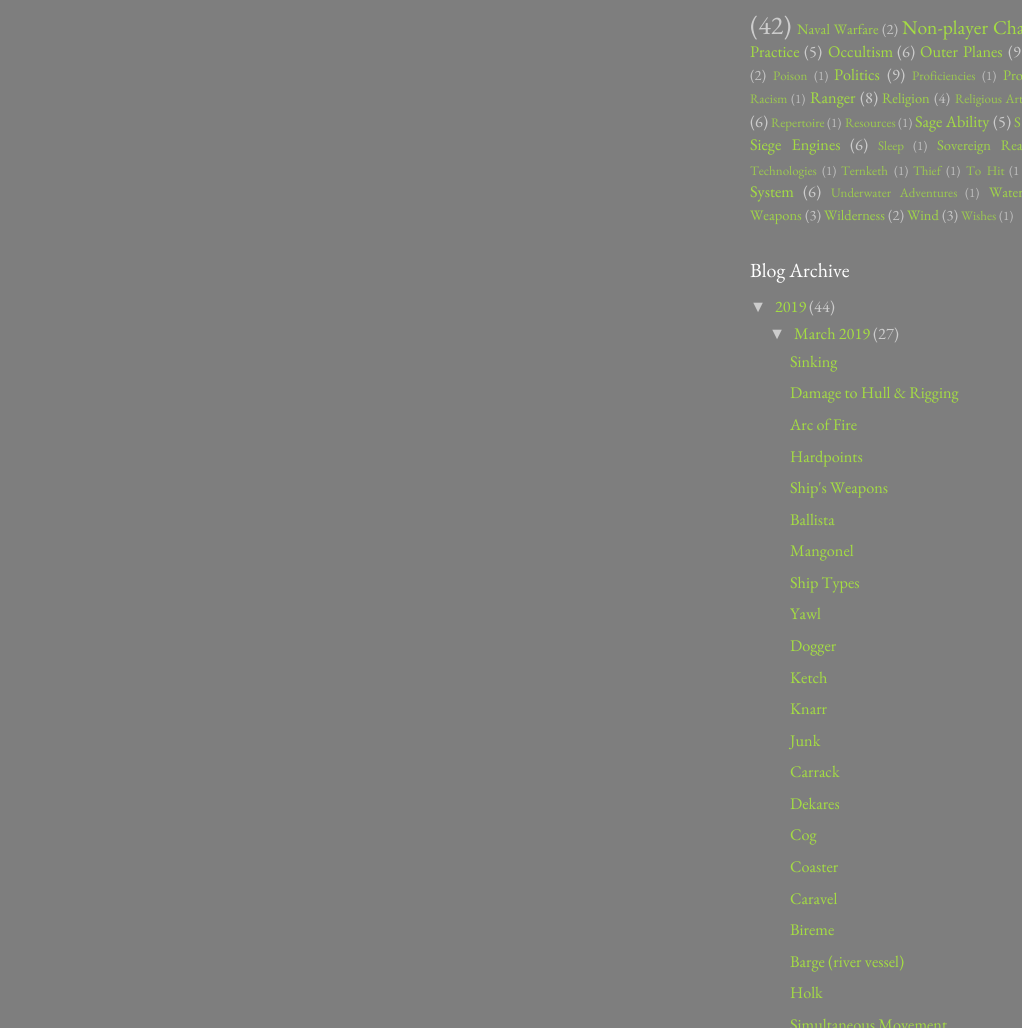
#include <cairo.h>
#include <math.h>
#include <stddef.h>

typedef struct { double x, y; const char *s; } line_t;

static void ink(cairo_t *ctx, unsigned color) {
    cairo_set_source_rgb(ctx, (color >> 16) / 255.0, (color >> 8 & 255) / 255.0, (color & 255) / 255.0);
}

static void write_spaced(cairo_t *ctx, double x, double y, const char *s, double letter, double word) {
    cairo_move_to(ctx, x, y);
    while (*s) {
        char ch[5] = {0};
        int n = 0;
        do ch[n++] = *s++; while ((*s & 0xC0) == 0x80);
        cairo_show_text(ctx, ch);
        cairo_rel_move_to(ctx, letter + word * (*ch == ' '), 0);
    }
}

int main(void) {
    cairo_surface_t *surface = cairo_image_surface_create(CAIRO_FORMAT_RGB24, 1022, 1028);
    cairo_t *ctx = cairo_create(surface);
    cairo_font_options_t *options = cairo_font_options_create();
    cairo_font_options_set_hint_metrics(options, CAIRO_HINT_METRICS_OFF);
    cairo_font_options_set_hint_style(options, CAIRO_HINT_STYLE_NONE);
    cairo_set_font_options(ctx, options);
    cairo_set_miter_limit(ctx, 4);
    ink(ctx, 0x7E7E7E);
    cairo_paint(ctx);
    cairo_select_font_face(ctx, "EB Garamond", CAIRO_FONT_SLANT_NORMAL, CAIRO_FONT_WEIGHT_NORMAL);
    cairo_set_font_size(ctx, 26);
    ink(ctx, 0xCCCCCC);
    cairo_move_to(ctx, 750, 34);
    cairo_show_text(ctx, "(42)");
    cairo_set_font_size(ctx, 14.5);
    ink(ctx, 0xA0D448);
    write_spaced(ctx, 797, 34, "Naval Warfare", 0, 1);
    ink(ctx, 0xC4C4C4);
    cairo_move_to(ctx, 882, 34);
    cairo_show_text(ctx, "(2)");
    cairo_set_font_size(ctx, 19.5);
    ink(ctx, 0xA4DD42);
    write_spaced(ctx, 902, 34, "Non-player Cha", 0, 1);
    cairo_set_font_size(ctx, 16.25);
    cairo_move_to(ctx, 750, 57);
    cairo_show_text(ctx, "Practice");
    ink(ctx, 0xCCCCCC);
    cairo_move_to(ctx, 804, 57);
    cairo_show_text(ctx, "(5)");
    ink(ctx, 0xA4DD42);
    cairo_move_to(ctx, 828, 57);
    cairo_show_text(ctx, "Occultism");
    ink(ctx, 0xCCCCCC);
    cairo_move_to(ctx, 897, 57);
    cairo_show_text(ctx, "(6)");
    ink(ctx, 0xA4DD42);
    write_spaced(ctx, 920, 57, "Outer Planes", 0, 2);
    ink(ctx, 0xCCCCCC);
    cairo_move_to(ctx, 1008, 57);
    cairo_show_text(ctx, "(9");
    cairo_set_font_size(ctx, 14.5);
    ink(ctx, 0xC4C4C4);
    cairo_move_to(ctx, 750, 80);
    cairo_show_text(ctx, "(2)");
    cairo_set_font_size(ctx, 13);
    ink(ctx, 0x9CCA4E);
    cairo_move_to(ctx, 773, 80);
    cairo_show_text(ctx, "Poison");
    ink(ctx, 0xBCBCBC);
    cairo_move_to(ctx, 814, 80);
    cairo_show_text(ctx, "(1)");
    cairo_set_font_size(ctx, 16.25);
    ink(ctx, 0xA4DD42);
    cairo_move_to(ctx, 834, 80);
    cairo_show_text(ctx, "Politics");
    ink(ctx, 0xCCCCCC);
    cairo_move_to(ctx, 887, 80);
    cairo_show_text(ctx, "(9)");
    cairo_set_font_size(ctx, 13);
    ink(ctx, 0x9CCA4E);
    cairo_move_to(ctx, 912, 80);
    cairo_show_text(ctx, "Proficiencies");
    ink(ctx, 0xBCBCBC);
    cairo_move_to(ctx, 982, 80);
    cairo_show_text(ctx, "(1)");
    cairo_set_font_size(ctx, 14.5);
    ink(ctx, 0xA0D448);
    cairo_move_to(ctx, 1003, 80);
    cairo_show_text(ctx, "Pro");
    cairo_set_font_size(ctx, 13);
    ink(ctx, 0x9CCA4E);
    cairo_move_to(ctx, 750, 103);
    cairo_show_text(ctx, "Racism");
    ink(ctx, 0xBCBCBC);
    cairo_move_to(ctx, 791, 103);
    cairo_show_text(ctx, "(1)");
    cairo_set_font_size(ctx, 16.25);
    ink(ctx, 0xA4DD42);
    cairo_move_to(ctx, 810, 103);
    cairo_show_text(ctx, "Ranger");
    ink(ctx, 0xCCCCCC);
    cairo_move_to(ctx, 860, 103);
    cairo_show_text(ctx, "(8)");
    cairo_set_font_size(ctx, 14.5);
    ink(ctx, 0xA0D448);
    cairo_move_to(ctx, 882, 103);
    cairo_show_text(ctx, "Religion");
    ink(ctx, 0xC4C4C4);
    cairo_move_to(ctx, 934, 103);
    cairo_show_text(ctx, "(4)");
    cairo_set_font_size(ctx, 13);
    ink(ctx, 0x9CCA4E);
    write_spaced(ctx, 955, 103, "Religious Art", 0, 1);
    cairo_set_font_size(ctx, 16.25);
    ink(ctx, 0xCCCCCC);
    cairo_move_to(ctx, 750, 127);
    cairo_show_text(ctx, "(6)");
    cairo_set_font_size(ctx, 13);
    ink(ctx, 0x9CCA4E);
    cairo_move_to(ctx, 771, 127);
    cairo_show_text(ctx, "Repertoire");
    ink(ctx, 0xBCBCBC);
    cairo_move_to(ctx, 827, 127);
    cairo_show_text(ctx, "(1)");
    ink(ctx, 0x9CCA4E);
    cairo_move_to(ctx, 845, 127);
    cairo_show_text(ctx, "Resources");
    ink(ctx, 0xBCBCBC);
    cairo_move_to(ctx, 898, 127);
    cairo_show_text(ctx, "(1)");
    cairo_set_font_size(ctx, 16.25);
    ink(ctx, 0xA4DD42);
    cairo_move_to(ctx, 915, 127);
    cairo_show_text(ctx, "Sage Ability");
    ink(ctx, 0xCCCCCC);
    cairo_move_to(ctx, 993, 127);
    cairo_show_text(ctx, "(5)");
    cairo_set_font_size(ctx, 14.5);
    ink(ctx, 0xA0D448);
    cairo_move_to(ctx, 1014, 127);
    cairo_show_text(ctx, "S");
    cairo_set_font_size(ctx, 16.25);
    ink(ctx, 0xA4DD42);
    write_spaced(ctx, 750, 150, "Siege Engines", 0, 7);
    ink(ctx, 0xCCCCCC);
    cairo_move_to(ctx, 850, 150);
    cairo_show_text(ctx, "(6)");
    cairo_set_font_size(ctx, 13);
    ink(ctx, 0x9CCA4E);
    cairo_move_to(ctx, 878, 150);
    cairo_show_text(ctx, "Sleep");
    ink(ctx, 0xBCBCBC);
    cairo_move_to(ctx, 913, 150);
    cairo_show_text(ctx, "(1)");
    cairo_set_font_size(ctx, 14.5);
    ink(ctx, 0xA0D448);
    write_spaced(ctx, 937, 150, "Sovereign Rea", 0, 7);
    cairo_set_font_size(ctx, 13);
    ink(ctx, 0x9CCA4E);
    cairo_move_to(ctx, 750, 175);
    cairo_show_text(ctx, "Technologies");
    ink(ctx, 0xBCBCBC);
    cairo_move_to(ctx, 822, 175);
    cairo_show_text(ctx, "(1)");
    ink(ctx, 0x9CCA4E);
    cairo_move_to(ctx, 841, 175);
    cairo_show_text(ctx, "Ternketh");
    ink(ctx, 0xBCBCBC);
    cairo_move_to(ctx, 894, 175);
    cairo_show_text(ctx, "(1)");
    ink(ctx, 0x9CCA4E);
    cairo_move_to(ctx, 913, 175);
    cairo_show_text(ctx, "Thief");
    ink(ctx, 0xBCBCBC);
    cairo_move_to(ctx, 946, 175);
    cairo_show_text(ctx, "(1)");
    ink(ctx, 0x9CCA4E);
    write_spaced(ctx, 966, 175, "To Hit", 0, 3);
    ink(ctx, 0xBCBCBC);
    cairo_move_to(ctx, 1009, 175);
    cairo_show_text(ctx, "(1");
    cairo_set_font_size(ctx, 16.25);
    ink(ctx, 0xA4DD42);
    cairo_move_to(ctx, 750, 197);
    cairo_show_text(ctx, "System");
    ink(ctx, 0xCCCCCC);
    cairo_move_to(ctx, 803, 197);
    cairo_show_text(ctx, "(6)");
    cairo_set_font_size(ctx, 13);
    ink(ctx, 0x9CCA4E);
    write_spaced(ctx, 831, 197, "Underwater Adventures", 0, 6);
    ink(ctx, 0xBCBCBC);
    cairo_move_to(ctx, 965, 197);
    cairo_show_text(ctx, "(1)");
    cairo_set_font_size(ctx, 14.5);
    ink(ctx, 0xA0D448);
    write_spaced(ctx, 989, 197, "Water", 0, 6);
    cairo_move_to(ctx, 750, 220);
    cairo_show_text(ctx, "Weapons");
    ink(ctx, 0xC4C4C4);
    cairo_move_to(ctx, 805, 220);
    cairo_show_text(ctx, "(3)");
    ink(ctx, 0xA0D448);
    cairo_move_to(ctx, 824, 220);
    cairo_show_text(ctx, "Wilderness");
    ink(ctx, 0xC4C4C4);
    cairo_move_to(ctx, 888, 220);
    cairo_show_text(ctx, "(2)");
    ink(ctx, 0xA0D448);
    cairo_move_to(ctx, 907, 220);
    cairo_show_text(ctx, "Wind");
    ink(ctx, 0xC4C4C4);
    cairo_move_to(ctx, 942, 220);
    cairo_show_text(ctx, "(3)");
    cairo_set_font_size(ctx, 13);
    ink(ctx, 0x9CCA4E);
    cairo_move_to(ctx, 961, 220);
    cairo_show_text(ctx, "Wishes");
    ink(ctx, 0xBCBCBC);
    cairo_move_to(ctx, 999, 220);
    cairo_show_text(ctx, "(1)");
    cairo_set_font_size(ctx, 20);
    ink(ctx, 0xFFFFFF);
    cairo_move_to(ctx, 750, 277);
    cairo_show_text(ctx, "Blog Archive");
    cairo_select_font_face(ctx, "Liberation Sans", CAIRO_FONT_SLANT_NORMAL, CAIRO_FONT_WEIGHT_NORMAL);
    cairo_set_font_size(ctx, 16.25);
    ink(ctx, 0xCCCCCC);
    cairo_move_to(ctx, 750, 312);
    cairo_show_text(ctx, "▼");
    cairo_select_font_face(ctx, "EB Garamond", CAIRO_FONT_SLANT_NORMAL, CAIRO_FONT_WEIGHT_NORMAL);
    ink(ctx, 0xA4DD42);
    cairo_move_to(ctx, 775, 312);
    cairo_show_text(ctx, "2019");
    ink(ctx, 0xCCCCCC);
    cairo_move_to(ctx, 809, 312);
    cairo_show_text(ctx, "(44)");
    cairo_select_font_face(ctx, "Liberation Sans", CAIRO_FONT_SLANT_NORMAL, CAIRO_FONT_WEIGHT_NORMAL);
    cairo_move_to(ctx, 769, 339);
    cairo_show_text(ctx, "▼");
    cairo_select_font_face(ctx, "EB Garamond", CAIRO_FONT_SLANT_NORMAL, CAIRO_FONT_WEIGHT_NORMAL);
    ink(ctx, 0xA4DD42);
    cairo_move_to(ctx, 794, 339);
    cairo_show_text(ctx, "March 2019");
    ink(ctx, 0xCCCCCC);
    cairo_move_to(ctx, 873, 339);
    cairo_show_text(ctx, "(27)");
    ink(ctx, 0xA4DD42);
    {
        static const line_t items[] = {
            {790, 367, "Sinking"},
            {790, 398, "Damage to Hull & Rigging"},
            {790, 430, "Arc of Fire"},
            {790, 462, "Hardpoints"},
            {790, 493, "Ship's Weapons"},
            {790, 525, "Ballista"},
            {790, 556, "Mangonel"},
            {790, 588, "Ship Types"},
            {790, 619, "Yawl"},
            {790, 651, "Dogger"},
            {790, 683, "Ketch"},
            {790, 714, "Knarr"},
            {790, 746, "Junk"},
            {790, 777, "Carrack"},
            {790, 809, "Dekares"},
            {790, 840, "Cog"},
            {790, 872, "Coaster"},
            {790, 904, "Caravel"},
            {790, 935, "Bireme"},
            {790, 967, "Barge (river vessel)"},
            {790, 998, "Holk"},
            {790, 1030, "Simultaneous Movement"},
        };
        for (size_t i = 0; i < sizeof items / sizeof *items; i++) {
            cairo_move_to(ctx, items[i].x, items[i].y);
            cairo_show_text(ctx, items[i].s);
        }
    }
    cairo_surface_write_to_png(surface, "image.png");
    cairo_font_options_destroy(options);
    cairo_destroy(ctx);
    cairo_surface_destroy(surface);
    return 0;
}
